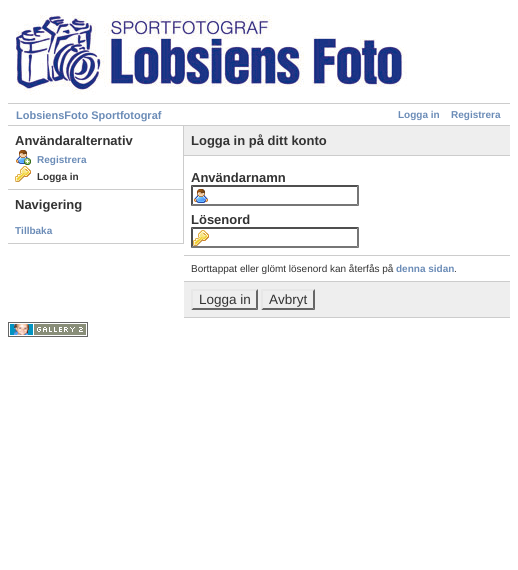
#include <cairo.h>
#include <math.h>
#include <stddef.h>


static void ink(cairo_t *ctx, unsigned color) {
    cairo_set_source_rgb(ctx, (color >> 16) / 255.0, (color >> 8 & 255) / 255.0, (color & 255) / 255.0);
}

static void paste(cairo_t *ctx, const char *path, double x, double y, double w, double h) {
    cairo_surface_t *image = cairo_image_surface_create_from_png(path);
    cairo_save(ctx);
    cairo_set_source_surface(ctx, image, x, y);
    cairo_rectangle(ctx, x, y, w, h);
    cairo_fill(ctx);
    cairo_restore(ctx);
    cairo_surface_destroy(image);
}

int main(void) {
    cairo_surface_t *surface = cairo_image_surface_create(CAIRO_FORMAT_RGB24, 518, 570);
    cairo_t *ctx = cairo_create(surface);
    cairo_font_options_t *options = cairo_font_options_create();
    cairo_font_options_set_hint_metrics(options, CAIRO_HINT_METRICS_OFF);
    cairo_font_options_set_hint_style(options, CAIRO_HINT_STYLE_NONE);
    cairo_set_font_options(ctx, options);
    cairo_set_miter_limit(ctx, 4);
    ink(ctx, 0xFFFFFF);
    cairo_paint(ctx);
    paste(ctx, "media/1.png", 16, 15, 392, 80);
    ink(ctx, 0xCCCCCC);
    cairo_rectangle(ctx, 8, 103, 502, 1);
    cairo_fill(ctx);
    cairo_rectangle(ctx, 8, 125, 502, 1);
    cairo_fill(ctx);
    cairo_select_font_face(ctx, "Liberation Sans", CAIRO_FONT_SLANT_NORMAL, CAIRO_FONT_WEIGHT_BOLD);
    cairo_set_font_size(ctx, 11);
    ink(ctx, 0x6B8CB7);
    cairo_move_to(ctx, 16, 119);
    cairo_show_text(ctx, "LobsiensFoto Sportfotograf");
    cairo_set_font_size(ctx, 10);
    cairo_move_to(ctx, 398, 118);
    cairo_show_text(ctx, "Logga in");
    cairo_move_to(ctx, 451, 118);
    cairo_show_text(ctx, "Registrera");
    ink(ctx, 0xCCCCCC);
    cairo_rectangle(ctx, 183, 126, 1, 118);
    cairo_fill(ctx);
    cairo_rectangle(ctx, 8, 189, 175, 1);
    cairo_fill(ctx);
    cairo_set_font_size(ctx, 13);
    ink(ctx, 0x333333);
    cairo_move_to(ctx, 15, 145);
    cairo_show_text(ctx, "Användaralternativ");
    paste(ctx, "media/2.png", 16, 150, 15, 15);
    cairo_set_font_size(ctx, 10);
    ink(ctx, 0x6B8CB7);
    cairo_move_to(ctx, 37, 163);
    cairo_show_text(ctx, "Registrera");
    paste(ctx, "media/3.png", 15, 166, 16, 16);
    ink(ctx, 0x333333);
    cairo_move_to(ctx, 37, 180);
    cairo_show_text(ctx, "Logga in");
    ink(ctx, 0xCCCCCC);
    cairo_rectangle(ctx, 8, 243, 175, 1);
    cairo_fill(ctx);
    cairo_set_font_size(ctx, 13);
    ink(ctx, 0x333333);
    cairo_move_to(ctx, 15, 209);
    cairo_show_text(ctx, "Navigering");
    cairo_set_font_size(ctx, 10);
    ink(ctx, 0x6B8CB7);
    cairo_move_to(ctx, 15, 234);
    cairo_show_text(ctx, "Tillbaka");
    ink(ctx, 0xEEEEEE);
    cairo_rectangle(ctx, 184, 126, 326, 29);
    cairo_fill(ctx);
    ink(ctx, 0xCCCCCC);
    cairo_rectangle(ctx, 184, 155, 326, 1);
    cairo_fill(ctx);
    cairo_set_font_size(ctx, 13);
    ink(ctx, 0x333333);
    cairo_move_to(ctx, 191, 145);
    cairo_show_text(ctx, "Logga in på ditt konto");
    ink(ctx, 0xCCCCCC);
    cairo_rectangle(ctx, 184, 255, 326, 1);
    cairo_fill(ctx);
    ink(ctx, 0x333333);
    cairo_move_to(ctx, 191, 182);
    cairo_show_text(ctx, "Användarnamn");
    paste(ctx, "media/4.png", 194, 189, 14, 14);
    ink(ctx, 0x4F4F4F);
    cairo_new_path(ctx);
    cairo_move_to(ctx, 191, 185);
    cairo_line_to(ctx, 359, 185);
    cairo_line_to(ctx, 357, 187);
    cairo_line_to(ctx, 193, 187);
    cairo_close_path(ctx);
    cairo_fill(ctx);
    ink(ctx, 0x767676);
    cairo_new_path(ctx);
    cairo_move_to(ctx, 359, 185);
    cairo_line_to(ctx, 359, 206);
    cairo_line_to(ctx, 357, 204);
    cairo_line_to(ctx, 357, 187);
    cairo_close_path(ctx);
    cairo_fill(ctx);
    cairo_new_path(ctx);
    cairo_move_to(ctx, 359, 206);
    cairo_line_to(ctx, 191, 206);
    cairo_line_to(ctx, 193, 204);
    cairo_line_to(ctx, 357, 204);
    cairo_close_path(ctx);
    cairo_fill(ctx);
    ink(ctx, 0x4F4F4F);
    cairo_new_path(ctx);
    cairo_move_to(ctx, 191, 206);
    cairo_line_to(ctx, 191, 185);
    cairo_line_to(ctx, 193, 187);
    cairo_line_to(ctx, 193, 204);
    cairo_close_path(ctx);
    cairo_fill(ctx);
    ink(ctx, 0x333333);
    cairo_move_to(ctx, 191, 224);
    cairo_show_text(ctx, "Lösenord");
    paste(ctx, "media/3.png", 193, 230, 16, 16);
    ink(ctx, 0x4F4F4F);
    cairo_new_path(ctx);
    cairo_move_to(ctx, 191, 227);
    cairo_line_to(ctx, 359, 227);
    cairo_line_to(ctx, 357, 229);
    cairo_line_to(ctx, 193, 229);
    cairo_close_path(ctx);
    cairo_fill(ctx);
    ink(ctx, 0x767676);
    cairo_new_path(ctx);
    cairo_move_to(ctx, 359, 227);
    cairo_line_to(ctx, 359, 248);
    cairo_line_to(ctx, 357, 246);
    cairo_line_to(ctx, 357, 229);
    cairo_close_path(ctx);
    cairo_fill(ctx);
    cairo_new_path(ctx);
    cairo_move_to(ctx, 359, 248);
    cairo_line_to(ctx, 191, 248);
    cairo_line_to(ctx, 193, 246);
    cairo_line_to(ctx, 357, 246);
    cairo_close_path(ctx);
    cairo_fill(ctx);
    ink(ctx, 0x4F4F4F);
    cairo_new_path(ctx);
    cairo_move_to(ctx, 191, 248);
    cairo_line_to(ctx, 191, 227);
    cairo_line_to(ctx, 193, 229);
    cairo_line_to(ctx, 193, 246);
    cairo_close_path(ctx);
    cairo_fill(ctx);
    ink(ctx, 0xCCCCCC);
    cairo_rectangle(ctx, 184, 281, 326, 1);
    cairo_fill(ctx);
    cairo_select_font_face(ctx, "Liberation Sans", CAIRO_FONT_SLANT_NORMAL, CAIRO_FONT_WEIGHT_NORMAL);
    cairo_set_font_size(ctx, 10);
    ink(ctx, 0x333333);
    cairo_move_to(ctx, 191, 272);
    cairo_show_text(ctx, "Borttappat eller glömt lösenord kan återfås på");
    cairo_select_font_face(ctx, "Liberation Sans", CAIRO_FONT_SLANT_NORMAL, CAIRO_FONT_WEIGHT_BOLD);
    ink(ctx, 0x6B8CB7);
    cairo_move_to(ctx, 396, 272);
    cairo_show_text(ctx, "denna sidan");
    cairo_select_font_face(ctx, "Liberation Sans", CAIRO_FONT_SLANT_NORMAL, CAIRO_FONT_WEIGHT_NORMAL);
    ink(ctx, 0x333333);
    cairo_move_to(ctx, 454, 272);
    cairo_show_text(ctx, ".");
    ink(ctx, 0xEEEEEE);
    cairo_rectangle(ctx, 184, 282, 326, 35);
    cairo_fill(ctx);
    ink(ctx, 0xCCCCCC);
    cairo_rectangle(ctx, 184, 317, 326, 1);
    cairo_fill(ctx);
    ink(ctx, 0xE7E7E7);
    cairo_new_path(ctx);
    cairo_move_to(ctx, 191, 289);
    cairo_line_to(ctx, 258, 289);
    cairo_line_to(ctx, 256, 291);
    cairo_line_to(ctx, 193, 291);
    cairo_close_path(ctx);
    cairo_fill(ctx);
    ink(ctx, 0x666666);
    cairo_new_path(ctx);
    cairo_move_to(ctx, 258, 289);
    cairo_line_to(ctx, 258, 310);
    cairo_line_to(ctx, 256, 308);
    cairo_line_to(ctx, 256, 291);
    cairo_close_path(ctx);
    cairo_fill(ctx);
    cairo_new_path(ctx);
    cairo_move_to(ctx, 258, 310);
    cairo_line_to(ctx, 191, 310);
    cairo_line_to(ctx, 193, 308);
    cairo_line_to(ctx, 256, 308);
    cairo_close_path(ctx);
    cairo_fill(ctx);
    ink(ctx, 0xE7E7E7);
    cairo_new_path(ctx);
    cairo_move_to(ctx, 191, 310);
    cairo_line_to(ctx, 191, 289);
    cairo_line_to(ctx, 193, 291);
    cairo_line_to(ctx, 193, 308);
    cairo_close_path(ctx);
    cairo_fill(ctx);
    cairo_set_font_size(ctx, 13.5);
    ink(ctx, 0x333333);
    cairo_move_to(ctx, 199, 304);
    cairo_show_text(ctx, "Logga in");
    ink(ctx, 0xE7E7E7);
    cairo_new_path(ctx);
    cairo_move_to(ctx, 261, 289);
    cairo_line_to(ctx, 315, 289);
    cairo_line_to(ctx, 313, 291);
    cairo_line_to(ctx, 263, 291);
    cairo_close_path(ctx);
    cairo_fill(ctx);
    ink(ctx, 0x666666);
    cairo_new_path(ctx);
    cairo_move_to(ctx, 315, 289);
    cairo_line_to(ctx, 315, 310);
    cairo_line_to(ctx, 313, 308);
    cairo_line_to(ctx, 313, 291);
    cairo_close_path(ctx);
    cairo_fill(ctx);
    cairo_new_path(ctx);
    cairo_move_to(ctx, 315, 310);
    cairo_line_to(ctx, 261, 310);
    cairo_line_to(ctx, 263, 308);
    cairo_line_to(ctx, 313, 308);
    cairo_close_path(ctx);
    cairo_fill(ctx);
    ink(ctx, 0xE7E7E7);
    cairo_new_path(ctx);
    cairo_move_to(ctx, 261, 310);
    cairo_line_to(ctx, 261, 289);
    cairo_line_to(ctx, 263, 291);
    cairo_line_to(ctx, 263, 308);
    cairo_close_path(ctx);
    cairo_fill(ctx);
    ink(ctx, 0x333333);
    cairo_move_to(ctx, 269, 304);
    cairo_show_text(ctx, "Avbryt");
    paste(ctx, "media/5.png", 8, 322, 80, 15);
    cairo_surface_write_to_png(surface, "image.png");
    cairo_font_options_destroy(options);
    cairo_destroy(ctx);
    cairo_surface_destroy(surface);
    return 0;
}
